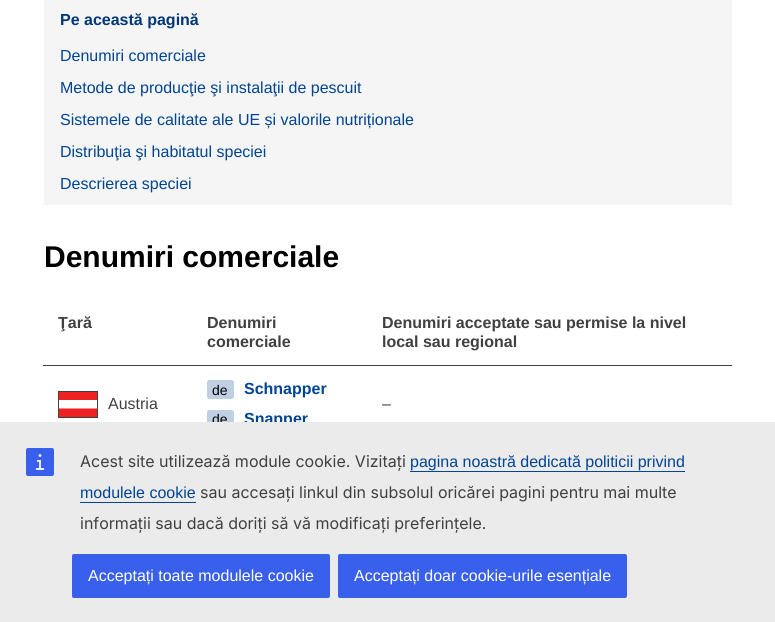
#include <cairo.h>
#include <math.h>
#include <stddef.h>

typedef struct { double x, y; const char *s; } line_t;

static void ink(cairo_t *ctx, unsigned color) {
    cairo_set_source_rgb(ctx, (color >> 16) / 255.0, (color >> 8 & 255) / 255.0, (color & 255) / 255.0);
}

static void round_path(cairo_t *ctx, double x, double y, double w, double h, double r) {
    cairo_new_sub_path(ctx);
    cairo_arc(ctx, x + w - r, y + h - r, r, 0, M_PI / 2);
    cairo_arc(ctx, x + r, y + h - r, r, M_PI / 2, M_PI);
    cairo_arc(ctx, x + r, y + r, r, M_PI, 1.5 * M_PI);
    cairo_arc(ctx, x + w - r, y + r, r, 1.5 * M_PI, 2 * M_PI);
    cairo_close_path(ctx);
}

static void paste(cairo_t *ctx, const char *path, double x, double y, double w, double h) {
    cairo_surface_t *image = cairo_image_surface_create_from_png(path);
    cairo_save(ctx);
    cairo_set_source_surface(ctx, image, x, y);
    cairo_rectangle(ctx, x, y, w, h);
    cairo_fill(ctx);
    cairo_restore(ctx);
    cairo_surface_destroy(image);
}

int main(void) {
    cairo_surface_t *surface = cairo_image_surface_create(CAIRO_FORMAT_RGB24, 775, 622);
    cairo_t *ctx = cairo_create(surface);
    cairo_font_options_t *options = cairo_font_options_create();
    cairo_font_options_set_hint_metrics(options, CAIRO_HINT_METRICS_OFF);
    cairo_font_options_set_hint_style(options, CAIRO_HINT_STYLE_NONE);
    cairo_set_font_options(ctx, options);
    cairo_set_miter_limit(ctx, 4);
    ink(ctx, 0xFFFFFF);
    cairo_paint(ctx);
    ink(ctx, 0xF5F5F5);
    cairo_rectangle(ctx, 44, 0, 688, 205);
    cairo_fill(ctx);
    cairo_select_font_face(ctx, "Liberation Sans", CAIRO_FONT_SLANT_NORMAL, CAIRO_FONT_WEIGHT_BOLD);
    cairo_set_font_size(ctx, 16);
    ink(ctx, 0x003776);
    cairo_move_to(ctx, 60, 25);
    cairo_show_text(ctx, "Pe această pagină");
    cairo_select_font_face(ctx, "Liberation Sans", CAIRO_FONT_SLANT_NORMAL, CAIRO_FONT_WEIGHT_NORMAL);
    ink(ctx, 0x004494);
    {
        static const line_t items[] = {
            {60, 61, "Denumiri comerciale"},
            {60, 93, "Metode de producţie şi instalaţii de pescuit"},
            {60, 125, "Sistemele de calitate ale UE și valorile nutriționale"},
            {60, 157, "Distribuţia şi habitatul speciei"},
            {60, 189, "Descrierea speciei"},
        };
        for (size_t i = 0; i < sizeof items / sizeof *items; i++) {
            cairo_move_to(ctx, items[i].x, items[i].y);
            cairo_show_text(ctx, items[i].s);
        }
    }
    cairo_select_font_face(ctx, "Liberation Sans", CAIRO_FONT_SLANT_NORMAL, CAIRO_FONT_WEIGHT_BOLD);
    cairo_set_font_size(ctx, 30);
    ink(ctx, 0x000000);
    cairo_move_to(ctx, 44, 267);
    cairo_show_text(ctx, "Denumiri comerciale");
    cairo_set_font_size(ctx, 16);
    ink(ctx, 0x404040);
    {
        static const line_t items[] = {
            {58, 328, "Ţară"},
            {207, 328, "Denumiri"},
            {207, 347, "comerciale"},
        };
        for (size_t i = 0; i < sizeof items / sizeof *items; i++) {
            cairo_move_to(ctx, items[i].x, items[i].y);
            cairo_show_text(ctx, items[i].s);
        }
    }
    cairo_rectangle(ctx, 43, 365, 689, 1);
    cairo_fill(ctx);
    cairo_move_to(ctx, 382, 328);
    cairo_show_text(ctx, "Denumiri acceptate sau permise la nivel");
    cairo_move_to(ctx, 382, 347);
    cairo_show_text(ctx, "local sau regional");
    paste(ctx, "media/1.png", 59, 392, 38, 25);
    cairo_rectangle(ctx, 58.5, 391.5, 39, 26);
    cairo_set_line_width(ctx, 1);
    cairo_stroke(ctx);
    cairo_select_font_face(ctx, "Liberation Sans", CAIRO_FONT_SLANT_NORMAL, CAIRO_FONT_WEIGHT_NORMAL);
    cairo_move_to(ctx, 108, 409);
    cairo_show_text(ctx, "Austria");
    ink(ctx, 0xBFD0E4);
    round_path(ctx, 207, 380, 27, 19, 2.5);
    cairo_fill(ctx);
    cairo_set_font_size(ctx, 14);
    ink(ctx, 0x000000);
    cairo_move_to(ctx, 212, 395);
    cairo_show_text(ctx, "de");
    cairo_select_font_face(ctx, "Liberation Sans", CAIRO_FONT_SLANT_NORMAL, CAIRO_FONT_WEIGHT_BOLD);
    cairo_set_font_size(ctx, 16);
    ink(ctx, 0x004494);
    cairo_move_to(ctx, 244, 394);
    cairo_show_text(ctx, "Schnapper");
    ink(ctx, 0xBFD0E4);
    round_path(ctx, 207, 410, 27, 18, 2.5);
    cairo_fill(ctx);
    cairo_select_font_face(ctx, "Liberation Sans", CAIRO_FONT_SLANT_NORMAL, CAIRO_FONT_WEIGHT_NORMAL);
    cairo_set_font_size(ctx, 14);
    ink(ctx, 0x000000);
    cairo_move_to(ctx, 212, 424);
    cairo_show_text(ctx, "de");
    cairo_select_font_face(ctx, "Liberation Sans", CAIRO_FONT_SLANT_NORMAL, CAIRO_FONT_WEIGHT_BOLD);
    cairo_set_font_size(ctx, 16);
    ink(ctx, 0x004494);
    cairo_move_to(ctx, 244, 424);
    cairo_show_text(ctx, "Snapper");
    cairo_select_font_face(ctx, "Liberation Sans", CAIRO_FONT_SLANT_NORMAL, CAIRO_FONT_WEIGHT_NORMAL);
    ink(ctx, 0x404040);
    cairo_move_to(ctx, 382, 409);
    cairo_show_text(ctx, "–");
    ink(ctx, 0xEBEBEB);
    cairo_rectangle(ctx, 0, 422, 775, 200);
    cairo_fill(ctx);
    paste(ctx, "media/2.png", 26, 448, 28, 28);
    cairo_select_font_face(ctx, "Inter", CAIRO_FONT_SLANT_NORMAL, CAIRO_FONT_WEIGHT_NORMAL);
    ink(ctx, 0x404040);
    cairo_move_to(ctx, 80, 467);
    cairo_show_text(ctx, "Acest site utilizează module cookie. Vizitați");
    cairo_select_font_face(ctx, "Liberation Sans", CAIRO_FONT_SLANT_NORMAL, CAIRO_FONT_WEIGHT_NORMAL);
    ink(ctx, 0x004494);
    cairo_move_to(ctx, 410, 467);
    cairo_show_text(ctx, "pagina noastră dedicată politicii privind");
    cairo_rectangle(ctx, 410, 471, 275, 1);
    cairo_fill(ctx);
    cairo_move_to(ctx, 80, 498);
    cairo_show_text(ctx, "modulele cookie");
    cairo_rectangle(ctx, 80, 502, 116, 1);
    cairo_fill(ctx);
    cairo_select_font_face(ctx, "Inter", CAIRO_FONT_SLANT_NORMAL, CAIRO_FONT_WEIGHT_NORMAL);
    ink(ctx, 0x404040);
    cairo_move_to(ctx, 200, 498);
    cairo_show_text(ctx, "sau accesați linkul din subsolul oricărei pagini pentru mai multe");
    cairo_move_to(ctx, 80, 529);
    cairo_show_text(ctx, "informații sau dacă doriți să vă modificați preferințele.");
    ink(ctx, 0x3860ED);
    round_path(ctx, 72, 554, 258, 44, 2);
    cairo_fill(ctx);
    cairo_select_font_face(ctx, "Liberation Sans", CAIRO_FONT_SLANT_NORMAL, CAIRO_FONT_WEIGHT_NORMAL);
    ink(ctx, 0xFFFFFF);
    cairo_move_to(ctx, 88, 581);
    cairo_show_text(ctx, "Acceptați toate modulele cookie");
    ink(ctx, 0x3860ED);
    round_path(ctx, 338, 554, 289, 44, 2);
    cairo_fill(ctx);
    ink(ctx, 0xFFFFFF);
    cairo_move_to(ctx, 354, 581);
    cairo_show_text(ctx, "Acceptați doar cookie-urile esențiale");
    cairo_surface_write_to_png(surface, "image.png");
    cairo_font_options_destroy(options);
    cairo_destroy(ctx);
    cairo_surface_destroy(surface);
    return 0;
}
